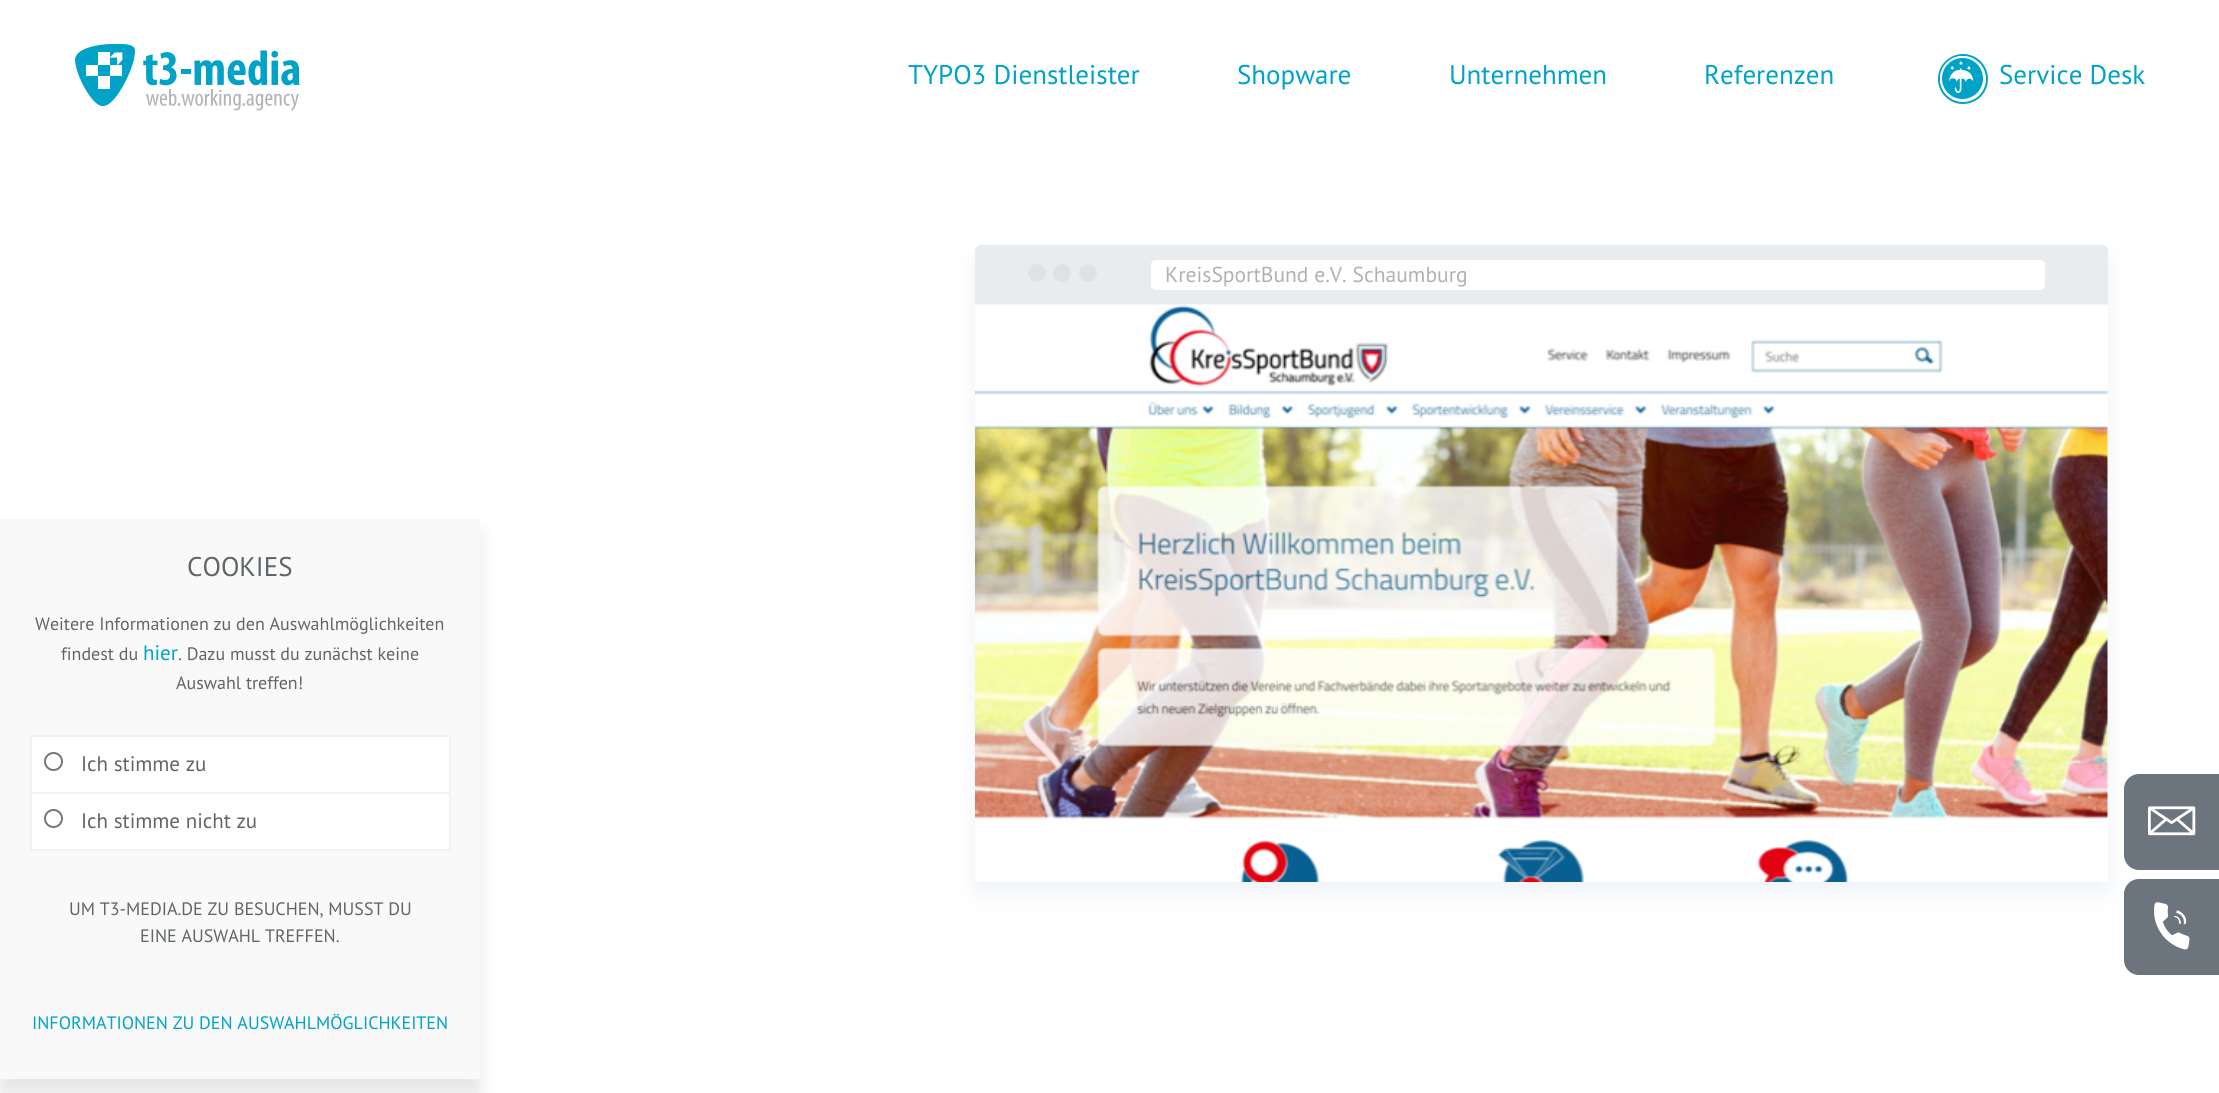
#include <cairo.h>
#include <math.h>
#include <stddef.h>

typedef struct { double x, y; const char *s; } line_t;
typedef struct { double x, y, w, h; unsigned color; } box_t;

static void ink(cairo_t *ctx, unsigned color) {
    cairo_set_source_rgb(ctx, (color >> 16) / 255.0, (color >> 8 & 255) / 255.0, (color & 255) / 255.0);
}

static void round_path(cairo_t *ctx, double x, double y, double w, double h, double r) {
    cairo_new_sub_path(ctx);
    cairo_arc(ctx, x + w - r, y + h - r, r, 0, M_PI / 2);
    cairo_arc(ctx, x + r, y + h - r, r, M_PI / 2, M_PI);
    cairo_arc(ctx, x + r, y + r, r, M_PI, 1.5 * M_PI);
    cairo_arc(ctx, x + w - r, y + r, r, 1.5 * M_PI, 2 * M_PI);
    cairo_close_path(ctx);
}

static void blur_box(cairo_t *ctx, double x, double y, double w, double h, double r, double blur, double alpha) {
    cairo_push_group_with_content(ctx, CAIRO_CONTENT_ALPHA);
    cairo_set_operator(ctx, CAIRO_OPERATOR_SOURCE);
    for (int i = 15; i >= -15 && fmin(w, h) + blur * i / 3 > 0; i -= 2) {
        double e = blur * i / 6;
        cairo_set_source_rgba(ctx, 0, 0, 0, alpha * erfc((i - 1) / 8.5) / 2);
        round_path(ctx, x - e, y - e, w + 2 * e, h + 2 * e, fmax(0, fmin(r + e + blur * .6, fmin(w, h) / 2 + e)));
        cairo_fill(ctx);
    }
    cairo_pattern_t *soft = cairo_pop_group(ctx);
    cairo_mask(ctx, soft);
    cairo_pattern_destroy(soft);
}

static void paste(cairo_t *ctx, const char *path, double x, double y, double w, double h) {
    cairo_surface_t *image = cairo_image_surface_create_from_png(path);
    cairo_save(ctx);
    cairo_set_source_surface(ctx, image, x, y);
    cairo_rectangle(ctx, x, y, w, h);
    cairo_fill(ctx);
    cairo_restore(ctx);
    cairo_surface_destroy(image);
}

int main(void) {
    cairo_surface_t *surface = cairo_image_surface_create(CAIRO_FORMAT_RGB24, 2219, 1093);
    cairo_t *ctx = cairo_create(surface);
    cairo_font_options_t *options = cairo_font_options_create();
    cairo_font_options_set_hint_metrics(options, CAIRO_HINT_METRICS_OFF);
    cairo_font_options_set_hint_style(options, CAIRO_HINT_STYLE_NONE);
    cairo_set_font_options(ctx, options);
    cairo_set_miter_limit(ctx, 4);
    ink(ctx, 0xFFFFFF);
    cairo_paint(ctx);
    paste(ctx, "media/1.png", 75, 44, 225, 67);
    cairo_select_font_face(ctx, "PT Sans", CAIRO_FONT_SLANT_NORMAL, CAIRO_FONT_WEIGHT_NORMAL);
    cairo_set_font_size(ctx, 27);
    ink(ctx, 0x00A2C8);
    {
        static const line_t items[] = {
            {908, 84, "TYPO3 Dienstleister"},
            {1237, 84, "Shopware"},
            {1449, 84, "Unternehmen"},
            {1704, 84, "Referenzen"},
        };
        for (size_t i = 0; i < sizeof items / sizeof *items; i++) {
            cairo_move_to(ctx, items[i].x, items[i].y);
            cairo_show_text(ctx, items[i].s);
        }
    }
    cairo_new_path(ctx);
    cairo_arc(ctx, 1963, 79, 24, 0, 2 * M_PI);
    cairo_stroke(ctx);
    cairo_arc(ctx, 1962.5, 78.5, 21.5, 0, 2 * M_PI);
    cairo_fill_preserve(ctx);
    ink(ctx, 0xFFFFFF);
    cairo_stroke(ctx);
    paste(ctx, "media/2.png", 1949, 61, 25, 32);
    ink(ctx, 0x00A2C8);
    cairo_move_to(ctx, 1999, 84);
    cairo_show_text(ctx, "Service Desk");
    ink(ctx, 0xE0E5EE);
    blur_box(ctx, 975, 257, 1133, 637, 6, 10.5, 0.5);
    ink(ctx, 0xFFFFFF);
    cairo_new_path(ctx);
    cairo_move_to(ctx, 981, 245);
    cairo_line_to(ctx, 2102, 245);
    cairo_curve_to(ctx, 2105.5, 245, 2108, 247.5, 2108, 251);
    cairo_line_to(ctx, 2108, 882);
    cairo_line_to(ctx, 975, 882);
    cairo_line_to(ctx, 975, 251);
    cairo_curve_to(ctx, 975, 247.5, 977.5, 245, 981, 245);
    cairo_close_path(ctx);
    cairo_fill(ctx);
    ink(ctx, 0xE9ECEF);
    cairo_new_path(ctx);
    cairo_move_to(ctx, 981, 245);
    cairo_line_to(ctx, 2102, 245);
    cairo_curve_to(ctx, 2105.5, 245, 2108, 247.5, 2108, 251);
    cairo_line_to(ctx, 2108, 305);
    cairo_line_to(ctx, 975, 305);
    cairo_line_to(ctx, 975, 251);
    cairo_curve_to(ctx, 975, 247.5, 977.5, 245, 981, 245);
    cairo_close_path(ctx);
    cairo_fill(ctx);
    ink(ctx, 0xDEE2E6);
    cairo_arc(ctx, 1037, 273, 9, 0, 2 * M_PI);
    cairo_fill(ctx);
    cairo_arc(ctx, 1062, 273, 9, 0, 2 * M_PI);
    cairo_fill(ctx);
    cairo_arc(ctx, 1088, 273, 9, 0, 2 * M_PI);
    cairo_fill(ctx);
    ink(ctx, 0xFFFFFF);
    round_path(ctx, 1151, 260, 894, 30, 5);
    cairo_fill(ctx);
    cairo_set_font_size(ctx, 21.6);
    ink(ctx, 0xB0B1B1);
    cairo_move_to(ctx, 1165, 282);
    cairo_show_text(ctx, "KreisSportBund e.V. Schaumburg");
    paste(ctx, "media/3.png", 975, 304, 1133, 578);
    ink(ctx, 0x000000);
    blur_box(ctx, 0, 534, 480, 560, 0, 7.5, 0.1);
    ink(ctx, 0xF9F9F9);
    cairo_rectangle(ctx, 0, 519, 480, 560);
    cairo_fill(ctx);
    cairo_set_font_size(ctx, 27);
    ink(ctx, 0x606569);
    cairo_move_to(ctx, 187, 576);
    cairo_show_text(ctx, "COOKIES");
    cairo_set_font_size(ctx, 18);
    cairo_move_to(ctx, 35, 630);
    cairo_show_text(ctx, "Weitere Informationen zu den Auswahlmöglichkeiten");
    cairo_move_to(ctx, 61, 660);
    cairo_show_text(ctx, "findest du");
    cairo_set_font_size(ctx, 21);
    ink(ctx, 0x00A2C8);
    cairo_move_to(ctx, 143, 660);
    cairo_show_text(ctx, "hier");
    cairo_set_font_size(ctx, 18);
    ink(ctx, 0x606569);
    cairo_move_to(ctx, 178, 660);
    cairo_show_text(ctx, ". Dazu musst du zunächst keine");
    cairo_move_to(ctx, 176, 689);
    cairo_show_text(ctx, "Auswahl treffen!");
    {
        static const box_t items[] = {
            {30, 735, 420, 2, 0xF2F2F2},
            {449, 735, 2, 116, 0xF2F2F2},
            {30, 735, 2, 116, 0xF2F2F2},
            {32, 737, 417, 55, 0xFFFFFF},
            {32, 792, 417, 2, 0xF2F2F2},
        };
        for (size_t i = 0; i < sizeof items / sizeof *items; i++) {
            ink(ctx, items[i].color);
            cairo_rectangle(ctx, items[i].x, items[i].y, items[i].w, items[i].h);
            cairo_fill(ctx);
        }
    }
    cairo_new_path(ctx);
    cairo_arc(ctx, 53.5, 761.5, 8.5, 0, 2 * M_PI);
    ink(ctx, 0x767676);
    cairo_stroke(ctx);
    cairo_set_font_size(ctx, 21);
    ink(ctx, 0x606569);
    cairo_move_to(ctx, 81, 771);
    cairo_show_text(ctx, "Ich stimme zu");
    ink(ctx, 0xFFFFFF);
    cairo_rectangle(ctx, 32, 794, 417, 55);
    cairo_fill(ctx);
    ink(ctx, 0xF2F2F2);
    cairo_rectangle(ctx, 32, 849, 417, 2);
    cairo_fill(ctx);
    cairo_arc(ctx, 53.5, 818.5, 8.5, 0, 2 * M_PI);
    ink(ctx, 0x767676);
    cairo_stroke(ctx);
    ink(ctx, 0x606569);
    cairo_move_to(ctx, 81, 828);
    cairo_show_text(ctx, "Ich stimme nicht zu");
    cairo_set_font_size(ctx, 18);
    cairo_move_to(ctx, 69, 915);
    cairo_show_text(ctx, "UM T3-MEDIA.DE ZU BESUCHEN, MUSST DU");
    cairo_move_to(ctx, 140, 942);
    cairo_show_text(ctx, "EINE AUSWAHL TREFFEN.");
    ink(ctx, 0x00A2C8);
    cairo_move_to(ctx, 32, 1029);
    cairo_show_text(ctx, "INFORMATIONEN ZU DEN AUSWAHLMÖGLICHKEITEN");
    ink(ctx, 0x6C757D);
    round_path(ctx, 2124, 774, 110, 96, 15);
    cairo_fill(ctx);
    paste(ctx, "media/4.png", 2148, 806, 48, 30);
    round_path(ctx, 2124, 879, 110, 96, 15);
    cairo_fill(ctx);
    paste(ctx, "media/5.png", 2154, 902, 36, 48);
    cairo_surface_write_to_png(surface, "image.png");
    cairo_font_options_destroy(options);
    cairo_destroy(ctx);
    cairo_surface_destroy(surface);
    return 0;
}
